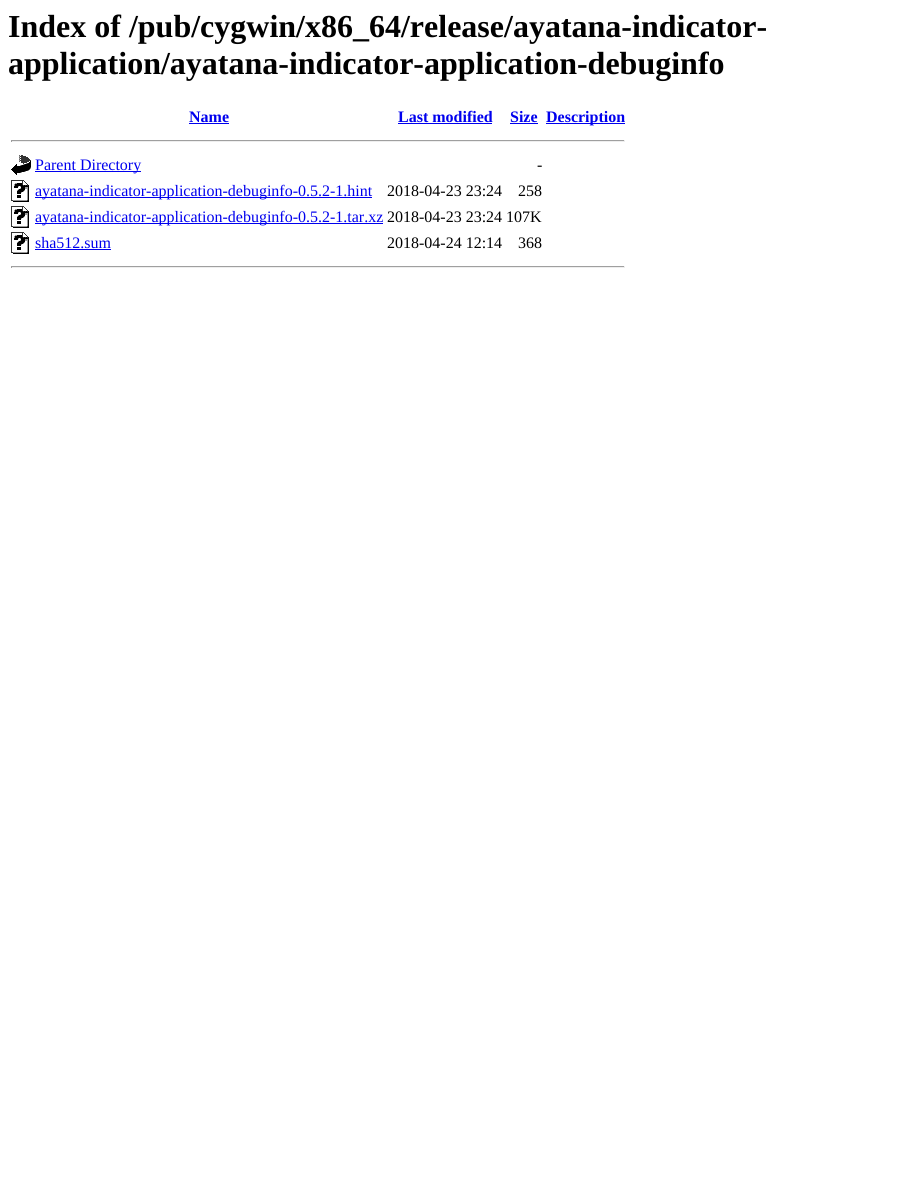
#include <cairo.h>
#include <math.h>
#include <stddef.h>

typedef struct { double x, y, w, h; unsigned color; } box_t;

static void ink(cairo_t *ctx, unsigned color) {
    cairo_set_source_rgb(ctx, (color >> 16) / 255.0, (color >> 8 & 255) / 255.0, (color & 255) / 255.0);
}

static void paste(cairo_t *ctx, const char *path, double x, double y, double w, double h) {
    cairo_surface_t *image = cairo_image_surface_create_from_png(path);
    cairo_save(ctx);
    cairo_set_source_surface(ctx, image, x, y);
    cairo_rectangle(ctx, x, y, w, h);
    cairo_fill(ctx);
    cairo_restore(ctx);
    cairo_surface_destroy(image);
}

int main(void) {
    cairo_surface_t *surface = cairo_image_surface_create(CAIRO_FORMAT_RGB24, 922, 1192);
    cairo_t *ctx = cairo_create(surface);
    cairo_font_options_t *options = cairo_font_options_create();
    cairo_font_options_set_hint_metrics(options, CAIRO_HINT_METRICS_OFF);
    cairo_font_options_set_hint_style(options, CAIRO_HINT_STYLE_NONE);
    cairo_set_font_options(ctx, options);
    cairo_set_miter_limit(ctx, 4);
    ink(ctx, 0xFFFFFF);
    cairo_paint(ctx);
    cairo_select_font_face(ctx, "Liberation Serif", CAIRO_FONT_SLANT_NORMAL, CAIRO_FONT_WEIGHT_BOLD);
    cairo_set_font_size(ctx, 32);
    ink(ctx, 0x000000);
    cairo_move_to(ctx, 8, 37);
    cairo_show_text(ctx, "Index of /pub/cygwin/x86_64/release/ayatana-indicator-");
    cairo_move_to(ctx, 8, 74);
    cairo_show_text(ctx, "application/ayatana-indicator-application-debuginfo");
    cairo_set_font_size(ctx, 16);
    ink(ctx, 0x0000EE);
    cairo_move_to(ctx, 189, 122);
    cairo_show_text(ctx, "Name");
    cairo_rectangle(ctx, 189, 123, 40, 1);
    cairo_fill(ctx);
    cairo_move_to(ctx, 398, 122);
    cairo_show_text(ctx, "Last modified");
    cairo_rectangle(ctx, 398, 123, 94, 1);
    cairo_fill(ctx);
    cairo_move_to(ctx, 510, 122);
    cairo_show_text(ctx, "Size");
    cairo_rectangle(ctx, 510, 123, 28, 1);
    cairo_fill(ctx);
    cairo_rectangle(ctx, 546, 123, 79, 1);
    cairo_fill(ctx);
    cairo_move_to(ctx, 546, 122);
    cairo_show_text(ctx, "Description");
    {
        static const box_t items[] = {
            {11, 140, 614, 1, 0x9F9F9F},
            {624, 140, 1, 2, 0xEEEEEE},
            {11, 141, 614, 1, 0xEEEEEE},
            {11, 140, 1, 2, 0x9F9F9F},
        };
        for (size_t i = 0; i < sizeof items / sizeof *items; i++) {
            ink(ctx, items[i].color);
            cairo_rectangle(ctx, items[i].x, items[i].y, items[i].w, items[i].h);
            cairo_fill(ctx);
        }
    }
    paste(ctx, "media/1.png", 11, 155, 20, 20);
    ink(ctx, 0x0000EE);
    cairo_rectangle(ctx, 35, 171, 106, 1);
    cairo_fill(ctx);
    cairo_select_font_face(ctx, "Liberation Serif", CAIRO_FONT_SLANT_NORMAL, CAIRO_FONT_WEIGHT_NORMAL);
    cairo_move_to(ctx, 35, 170);
    cairo_show_text(ctx, "Parent Directory");
    ink(ctx, 0x000000);
    cairo_move_to(ctx, 537, 170);
    cairo_show_text(ctx, "-");
    paste(ctx, "media/2.png", 11, 180, 18, 22);
    ink(ctx, 0x0000EE);
    cairo_rectangle(ctx, 35, 197, 337, 1);
    cairo_fill(ctx);
    cairo_move_to(ctx, 35, 196);
    cairo_show_text(ctx, "ayatana-indicator-application-debuginfo-0.5.2-1.hint");
    ink(ctx, 0x000000);
    cairo_move_to(ctx, 387, 196);
    cairo_show_text(ctx, "2018-04-23 23:24");
    cairo_move_to(ctx, 518, 196);
    cairo_show_text(ctx, "258");
    paste(ctx, "media/2.png", 11, 206, 18, 22);
    ink(ctx, 0x0000EE);
    cairo_rectangle(ctx, 35, 223, 348, 1);
    cairo_fill(ctx);
    cairo_move_to(ctx, 35, 222);
    cairo_show_text(ctx, "ayatana-indicator-application-debuginfo-0.5.2-1.tar.xz");
    ink(ctx, 0x000000);
    cairo_move_to(ctx, 387, 222);
    cairo_show_text(ctx, "2018-04-23 23:24 107K");
    paste(ctx, "media/2.png", 11, 232, 18, 22);
    ink(ctx, 0x0000EE);
    cairo_move_to(ctx, 35, 248);
    cairo_show_text(ctx, "sha512.sum");
    cairo_rectangle(ctx, 35, 249, 76, 1);
    cairo_fill(ctx);
    ink(ctx, 0x000000);
    cairo_move_to(ctx, 387, 248);
    cairo_show_text(ctx, "2018-04-24 12:14");
    cairo_move_to(ctx, 518, 248);
    cairo_show_text(ctx, "368");
    {
        static const box_t items[] = {
            {11, 266, 614, 1, 0x9F9F9F},
            {624, 266, 1, 2, 0xEEEEEE},
            {11, 267, 614, 1, 0xEEEEEE},
            {11, 266, 1, 2, 0x9F9F9F},
        };
        for (size_t i = 0; i < sizeof items / sizeof *items; i++) {
            ink(ctx, items[i].color);
            cairo_rectangle(ctx, items[i].x, items[i].y, items[i].w, items[i].h);
            cairo_fill(ctx);
        }
    }
    cairo_surface_write_to_png(surface, "image.png");
    cairo_font_options_destroy(options);
    cairo_destroy(ctx);
    cairo_surface_destroy(surface);
    return 0;
}
